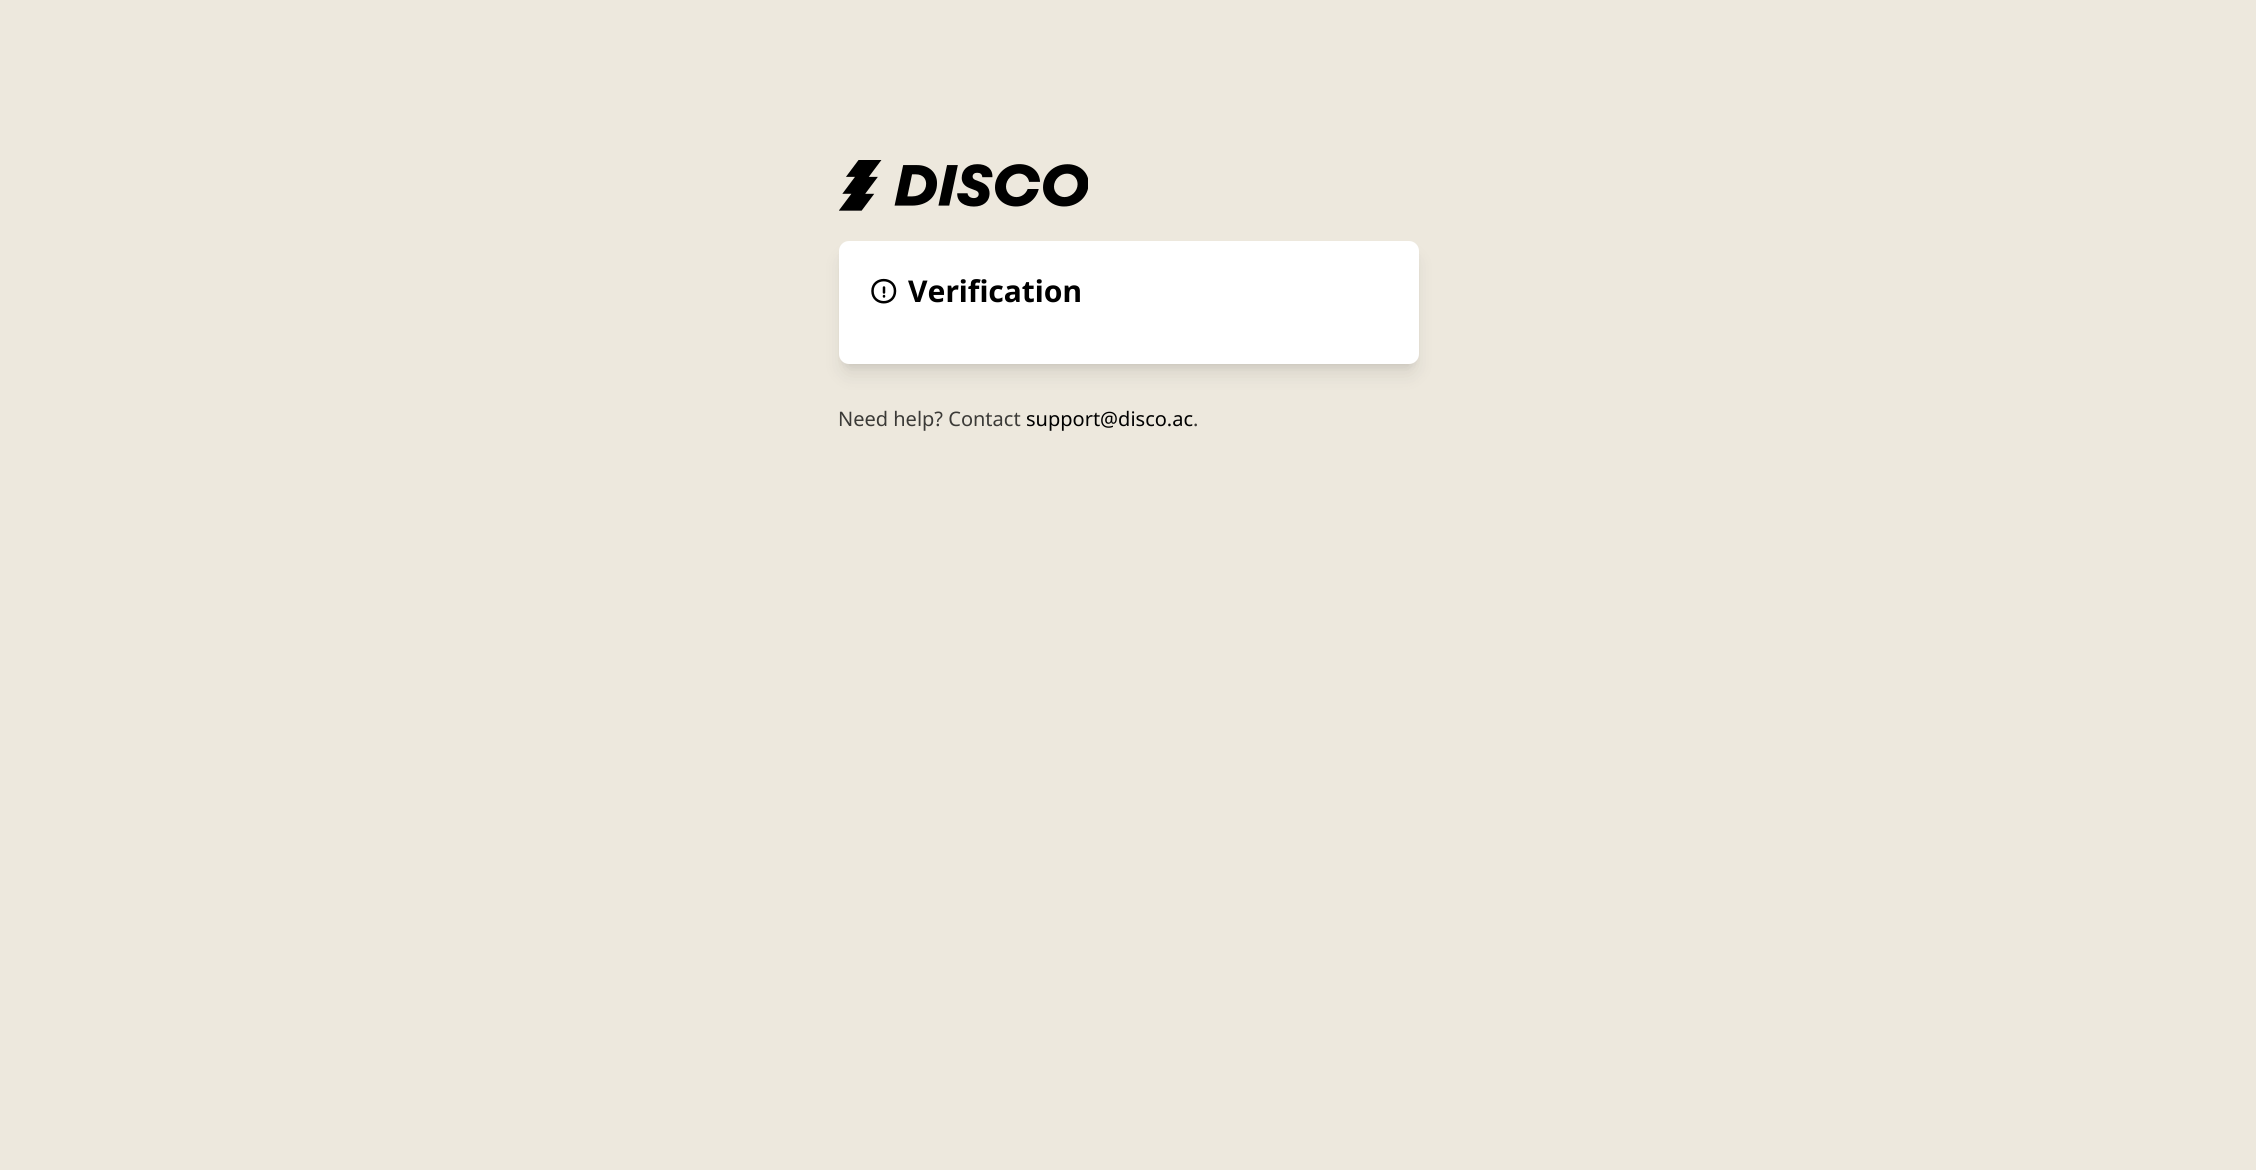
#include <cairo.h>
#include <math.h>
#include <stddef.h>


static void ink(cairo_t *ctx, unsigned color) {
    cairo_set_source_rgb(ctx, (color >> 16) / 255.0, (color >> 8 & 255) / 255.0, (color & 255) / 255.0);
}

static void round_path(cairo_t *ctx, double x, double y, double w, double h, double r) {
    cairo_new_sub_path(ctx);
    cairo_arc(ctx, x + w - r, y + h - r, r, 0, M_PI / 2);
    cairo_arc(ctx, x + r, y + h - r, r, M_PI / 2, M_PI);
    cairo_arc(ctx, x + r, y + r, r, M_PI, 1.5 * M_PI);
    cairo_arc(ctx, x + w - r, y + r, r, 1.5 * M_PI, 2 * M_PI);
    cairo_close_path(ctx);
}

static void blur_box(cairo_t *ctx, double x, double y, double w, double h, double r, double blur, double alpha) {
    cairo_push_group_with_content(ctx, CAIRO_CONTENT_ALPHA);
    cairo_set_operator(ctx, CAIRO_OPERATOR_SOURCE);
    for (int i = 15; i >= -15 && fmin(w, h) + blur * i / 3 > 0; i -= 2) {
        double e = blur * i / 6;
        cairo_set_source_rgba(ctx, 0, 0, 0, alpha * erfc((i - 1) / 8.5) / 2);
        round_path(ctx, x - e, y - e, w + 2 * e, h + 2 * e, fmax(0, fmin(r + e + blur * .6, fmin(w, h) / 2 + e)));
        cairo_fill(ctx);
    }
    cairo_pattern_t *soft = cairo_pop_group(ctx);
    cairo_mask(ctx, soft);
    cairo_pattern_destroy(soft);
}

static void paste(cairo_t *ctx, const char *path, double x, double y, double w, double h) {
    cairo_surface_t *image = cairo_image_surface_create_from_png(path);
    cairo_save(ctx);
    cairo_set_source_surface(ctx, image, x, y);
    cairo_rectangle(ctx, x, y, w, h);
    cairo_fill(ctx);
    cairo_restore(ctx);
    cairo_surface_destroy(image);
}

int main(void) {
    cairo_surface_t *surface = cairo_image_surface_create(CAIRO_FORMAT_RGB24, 2256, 1170);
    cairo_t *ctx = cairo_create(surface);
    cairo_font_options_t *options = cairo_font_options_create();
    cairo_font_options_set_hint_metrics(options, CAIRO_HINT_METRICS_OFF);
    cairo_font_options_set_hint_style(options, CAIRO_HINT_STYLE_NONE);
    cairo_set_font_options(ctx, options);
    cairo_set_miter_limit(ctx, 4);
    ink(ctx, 0xEDE8DD);
    cairo_paint(ctx);
    paste(ctx, "media/1.png", 839, 160, 249, 51);
    ink(ctx, 0x000000);
    blur_box(ctx, 844, 251, 570, 113, 5, 4, 0.1);
    blur_box(ctx, 843, 258, 572, 115, 6, 9.5, 0.1);
    ink(ctx, 0xFFFFFF);
    round_path(ctx, 839, 241, 580, 123, 10);
    cairo_fill(ctx);
    cairo_new_path(ctx);
    cairo_move_to(ctx, 872.5, 291);
    cairo_curve_to(ctx, 872.5, 306, 895, 306, 895, 291);
    cairo_curve_to(ctx, 895, 276.5, 872.5, 276.5, 872.5, 291);
    cairo_move_to(ctx, 884, 287.5);
    cairo_line_to(ctx, 884, 292.5);
    cairo_move_to(ctx, 884, 296);
    cairo_line_to(ctx, 884, 296.5);
    ink(ctx, 0x000000);
    cairo_set_line_width(ctx, 2.5);
    cairo_set_line_cap(ctx, CAIRO_LINE_CAP_ROUND);
    cairo_set_line_join(ctx, CAIRO_LINE_JOIN_ROUND);
    cairo_stroke(ctx);
    cairo_select_font_face(ctx, "Noto Sans", CAIRO_FONT_SLANT_NORMAL, CAIRO_FONT_WEIGHT_BOLD);
    cairo_set_font_size(ctx, 30);
    cairo_move_to(ctx, 908, 302);
    cairo_show_text(ctx, "Verification");
    cairo_select_font_face(ctx, "Noto Sans", CAIRO_FONT_SLANT_NORMAL, CAIRO_FONT_WEIGHT_NORMAL);
    cairo_set_font_size(ctx, 20);
    ink(ctx, 0x3B3A37);
    cairo_move_to(ctx, 838, 426);
    cairo_show_text(ctx, "Need help? Contact");
    ink(ctx, 0x000000);
    cairo_move_to(ctx, 1026, 426);
    cairo_show_text(ctx, "support@disco.ac");
    ink(ctx, 0x3B3A37);
    cairo_move_to(ctx, 1193, 426);
    cairo_show_text(ctx, ".");
    cairo_surface_write_to_png(surface, "image.png");
    cairo_font_options_destroy(options);
    cairo_destroy(ctx);
    cairo_surface_destroy(surface);
    return 0;
}
